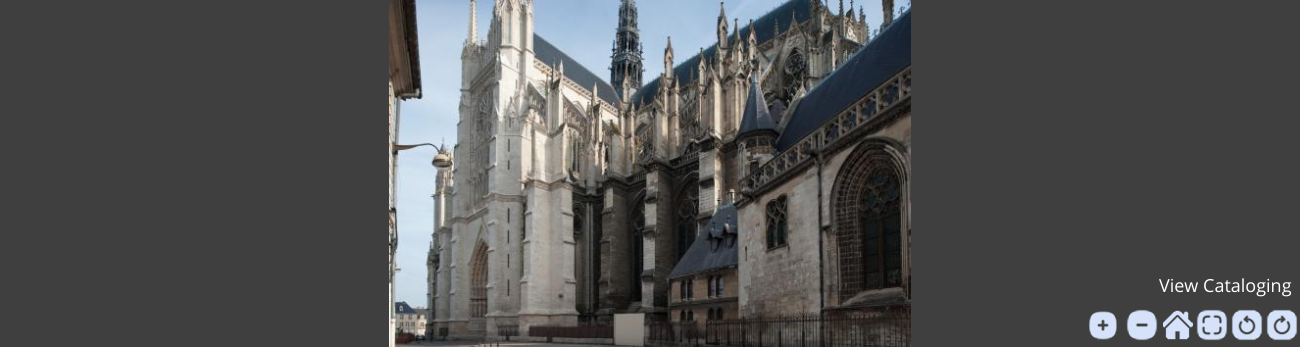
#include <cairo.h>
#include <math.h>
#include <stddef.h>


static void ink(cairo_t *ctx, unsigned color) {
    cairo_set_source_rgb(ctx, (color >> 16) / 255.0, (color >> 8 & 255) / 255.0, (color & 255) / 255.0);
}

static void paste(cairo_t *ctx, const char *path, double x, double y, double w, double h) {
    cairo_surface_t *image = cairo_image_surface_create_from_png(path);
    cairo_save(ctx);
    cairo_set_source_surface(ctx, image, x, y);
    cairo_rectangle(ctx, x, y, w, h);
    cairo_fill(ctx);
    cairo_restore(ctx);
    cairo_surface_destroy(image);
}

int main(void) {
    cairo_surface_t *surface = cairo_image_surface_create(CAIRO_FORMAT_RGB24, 1300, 347);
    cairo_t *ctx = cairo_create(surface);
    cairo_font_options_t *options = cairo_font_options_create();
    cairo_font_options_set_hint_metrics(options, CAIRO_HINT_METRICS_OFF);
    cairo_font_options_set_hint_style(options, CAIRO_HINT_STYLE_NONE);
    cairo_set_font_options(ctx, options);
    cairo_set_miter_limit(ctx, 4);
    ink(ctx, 0x3F3F3F);
    cairo_paint(ctx);
    paste(ctx, "media/1.png", 389, 0, 522, 347);
    paste(ctx, "media/2.png", 1089, 311, 28, 29);
    paste(ctx, "media/3.png", 1126, 309, 32, 32);
    paste(ctx, "media/4.png", 1163, 310, 30, 30);
    paste(ctx, "media/5.png", 1196, 309, 32, 32);
    paste(ctx, "media/6.png", 1231, 309, 32, 32);
    paste(ctx, "media/7.png", 1266, 309, 32, 32);
    cairo_select_font_face(ctx, "Open Sans", CAIRO_FONT_SLANT_NORMAL, CAIRO_FONT_WEIGHT_NORMAL);
    cairo_set_font_size(ctx, 18);
    ink(ctx, 0xFFFFFF);
    cairo_move_to(ctx, 1159, 292);
    cairo_show_text(ctx, "View Cataloging");
    cairo_surface_write_to_png(surface, "image.png");
    cairo_font_options_destroy(options);
    cairo_destroy(ctx);
    cairo_surface_destroy(surface);
    return 0;
}
